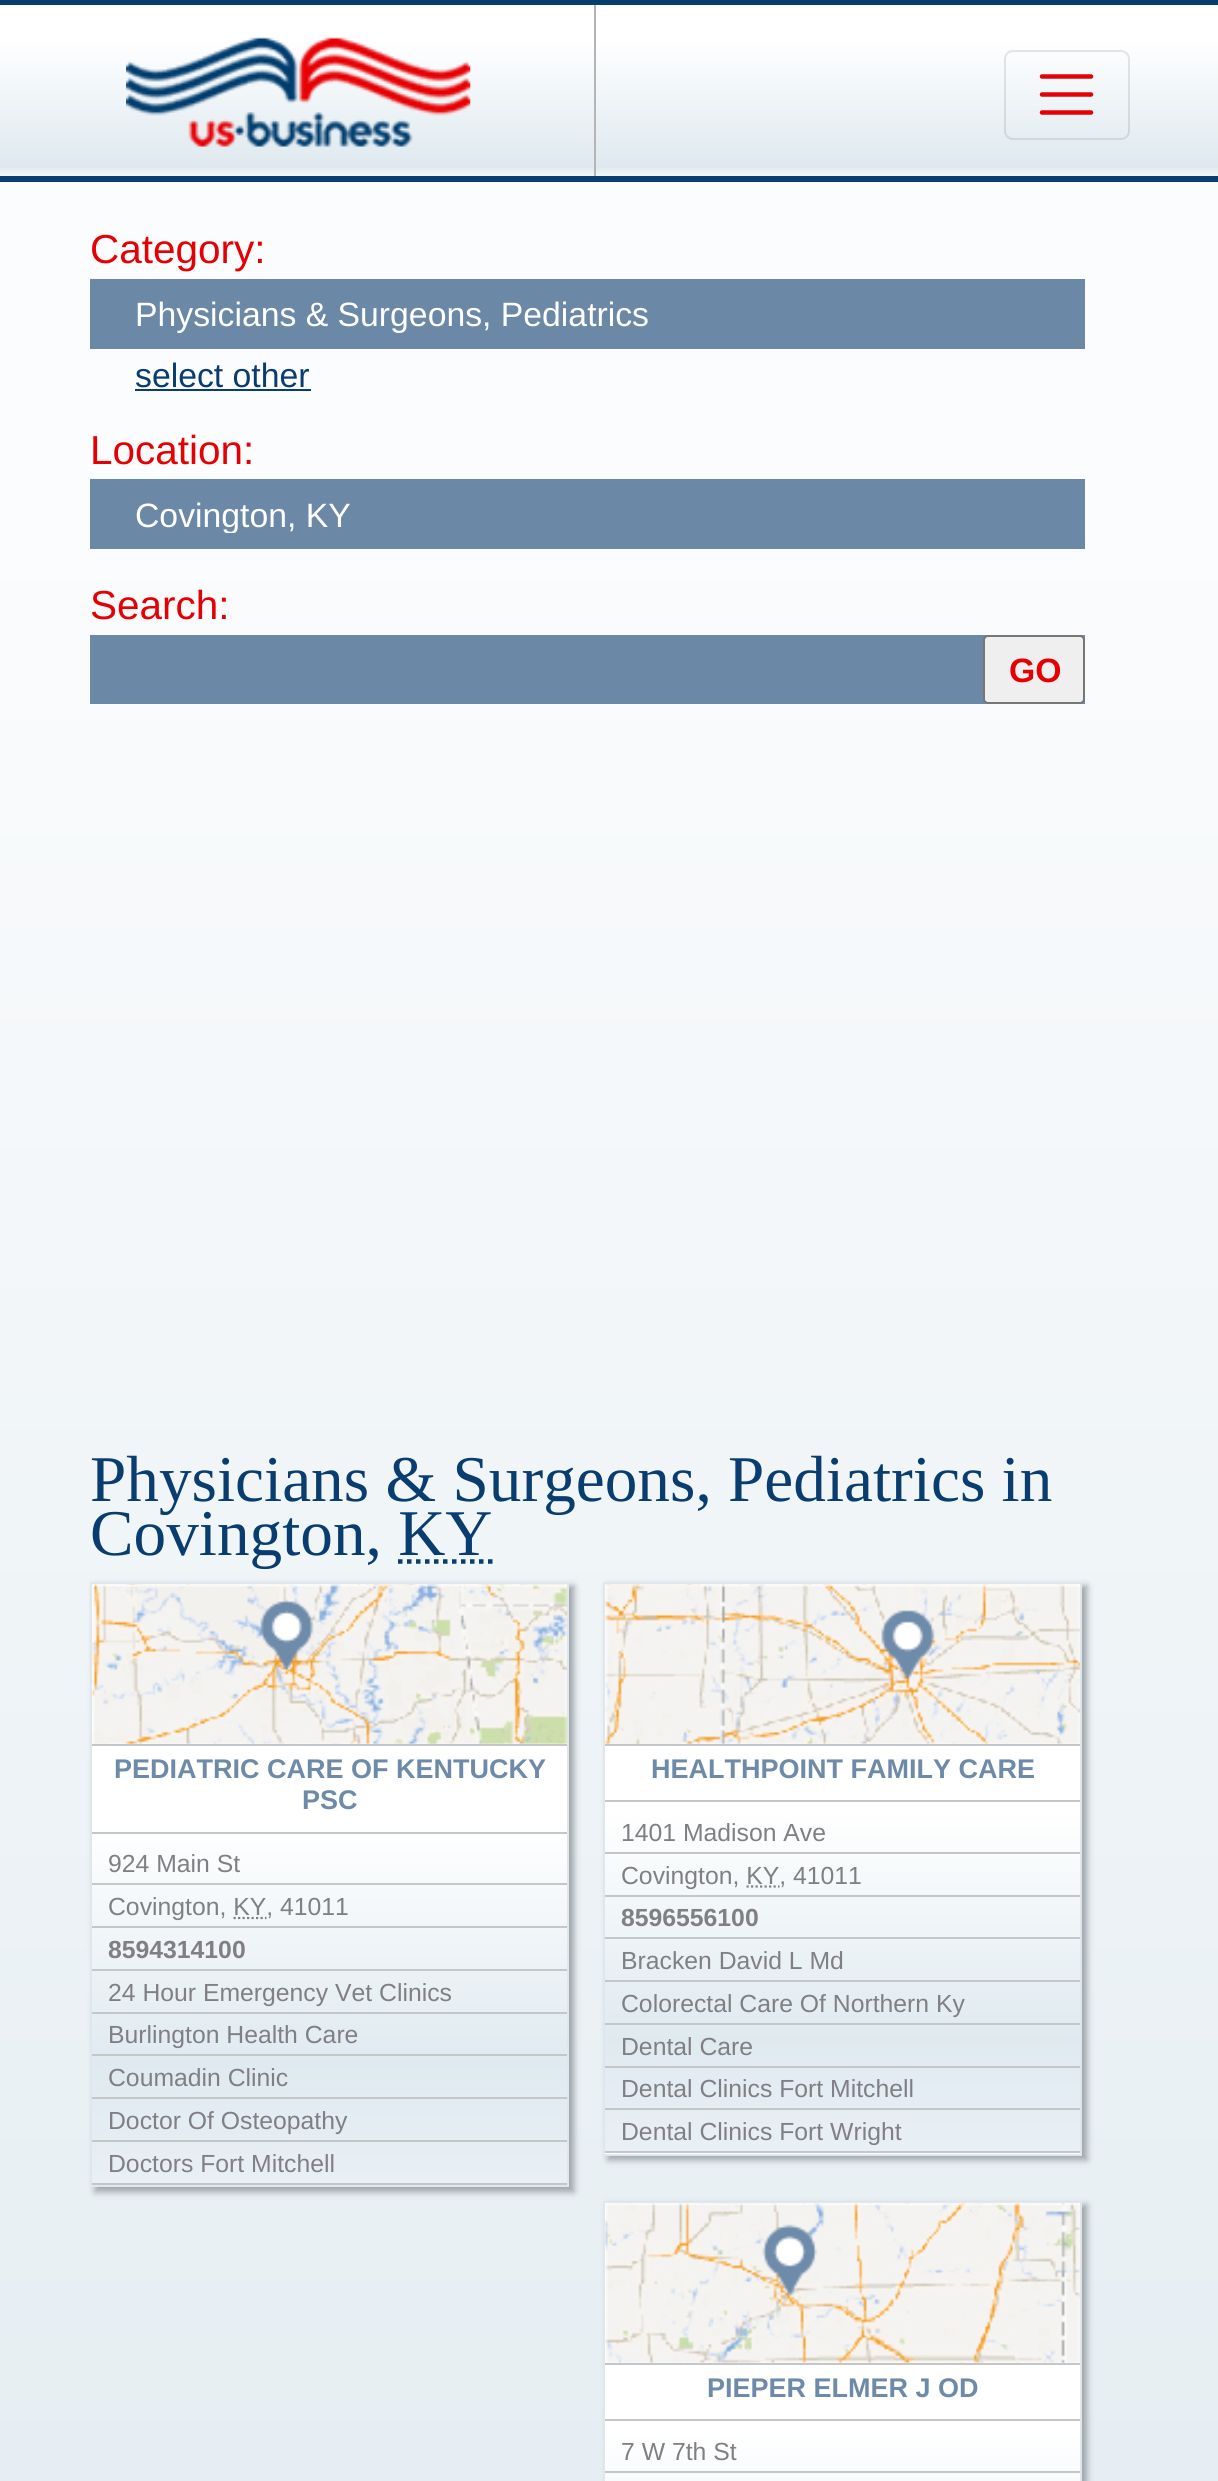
#include <cairo.h>
#include <math.h>
#include <stddef.h>


static void ink(cairo_t *ctx, unsigned color) {
    cairo_set_source_rgb(ctx, (color >> 16) / 255.0, (color >> 8 & 255) / 255.0, (color & 255) / 255.0);
}

static void round_path(cairo_t *ctx, double x, double y, double w, double h, double r) {
    cairo_new_sub_path(ctx);
    cairo_arc(ctx, x + w - r, y + h - r, r, 0, M_PI / 2);
    cairo_arc(ctx, x + r, y + h - r, r, M_PI / 2, M_PI);
    cairo_arc(ctx, x + r, y + r, r, M_PI, 1.5 * M_PI);
    cairo_arc(ctx, x + w - r, y + r, r, 1.5 * M_PI, 2 * M_PI);
    cairo_close_path(ctx);
}

static void blur_box(cairo_t *ctx, double x, double y, double w, double h, double r, double blur, double alpha) {
    cairo_push_group_with_content(ctx, CAIRO_CONTENT_ALPHA);
    cairo_set_operator(ctx, CAIRO_OPERATOR_SOURCE);
    for (int i = 15; i >= -15 && fmin(w, h) + blur * i / 3 > 0; i -= 2) {
        double e = blur * i / 6;
        cairo_set_source_rgba(ctx, 0, 0, 0, alpha * erfc((i - 1) / 8.5) / 2);
        round_path(ctx, x - e, y - e, w + 2 * e, h + 2 * e, fmax(0, fmin(r + e + blur * .6, fmin(w, h) / 2 + e)));
        cairo_fill(ctx);
    }
    cairo_pattern_t *soft = cairo_pop_group(ctx);
    cairo_mask(ctx, soft);
    cairo_pattern_destroy(soft);
}

static void paste(cairo_t *ctx, const char *path, double x, double y, double w, double h) {
    cairo_surface_t *image = cairo_image_surface_create_from_png(path);
    cairo_save(ctx);
    cairo_set_source_surface(ctx, image, x, y);
    cairo_rectangle(ctx, x, y, w, h);
    cairo_fill(ctx);
    cairo_restore(ctx);
    cairo_surface_destroy(image);
}

int main(void) {
    cairo_surface_t *surface = cairo_image_surface_create(CAIRO_FORMAT_RGB24, 1218, 2481);
    cairo_t *ctx = cairo_create(surface);
    cairo_font_options_t *options = cairo_font_options_create();
    cairo_font_options_set_hint_metrics(options, CAIRO_HINT_METRICS_OFF);
    cairo_font_options_set_hint_style(options, CAIRO_HINT_STYLE_NONE);
    cairo_set_font_options(ctx, options);
    cairo_set_miter_limit(ctx, 4);
    cairo_pattern_t *gradient;
    ink(ctx, 0x0A3D6F);
    cairo_paint(ctx);
    gradient = cairo_pattern_create_linear(610, 4.5, 610, 176);
    cairo_pattern_add_color_stop_rgba(gradient, 0.2, 1, 1, 1, 1);
    cairo_pattern_add_color_stop_rgba(gradient, 0.95, 0.871, 0.914, 0.937, 1);
    cairo_pattern_add_color_stop_rgba(gradient, 1, 0.953, 0.969, 0.976, 1);
    cairo_set_source(ctx, gradient);
    cairo_pattern_destroy(gradient);
    cairo_rectangle(ctx, 0, 5, 1218, 171);
    cairo_fill(ctx);
    ink(ctx, 0xB5B5B5);
    cairo_rectangle(ctx, 594, 5, 2, 171);
    cairo_fill(ctx);
    paste(ctx, "media/1.png", 126, 37, 345, 110);
    round_path(ctx, 1005, 51, 124, 88, 8);
    cairo_set_source_rgba(ctx, 0, 0, 0, 0.1);
    cairo_stroke(ctx);
    cairo_new_path(ctx);
    cairo_move_to(ctx, 1042, 76.5);
    cairo_line_to(ctx, 1091, 76.5);
    cairo_move_to(ctx, 1042, 94.5);
    cairo_line_to(ctx, 1091, 94.5);
    cairo_move_to(ctx, 1042, 112.5);
    cairo_line_to(ctx, 1091, 112.5);
    ink(ctx, 0xE50004);
    cairo_set_line_width(ctx, 4.5);
    cairo_set_line_cap(ctx, CAIRO_LINE_CAP_ROUND);
    cairo_stroke(ctx);
    gradient = cairo_pattern_create_linear(610, 182, 610, 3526);
    cairo_pattern_add_color_stop_rgba(gradient, 0.1, 0.984, 0.988, 0.992, 1);
    cairo_pattern_add_color_stop_rgba(gradient, 0.9, 0.871, 0.914, 0.937, 1);
    cairo_pattern_add_color_stop_rgba(gradient, 1, 0.984, 0.988, 0.992, 1);
    cairo_set_source(ctx, gradient);
    cairo_pattern_destroy(gradient);
    cairo_rectangle(ctx, 0, 182, 1218, 2299);
    cairo_fill(ctx);
    cairo_select_font_face(ctx, "Liberation Sans", CAIRO_FONT_SLANT_NORMAL, CAIRO_FONT_WEIGHT_NORMAL);
    cairo_set_font_size(ctx, 40.5);
    ink(ctx, 0xE50004);
    cairo_move_to(ctx, 90, 263);
    cairo_show_text(ctx, "Category:");
    ink(ctx, 0x6B88A6);
    cairo_rectangle(ctx, 90, 279, 995, 70);
    cairo_fill(ctx);
    cairo_set_font_size(ctx, 33.75);
    ink(ctx, 0xFFFFFF);
    cairo_move_to(ctx, 135, 326);
    cairo_show_text(ctx, "Physicians & Surgeons, Pediatrics");
    ink(ctx, 0x0A3D6F);
    cairo_move_to(ctx, 135, 387);
    cairo_show_text(ctx, "select other");
    cairo_rectangle(ctx, 135, 389, 176, 2);
    cairo_fill(ctx);
    cairo_set_font_size(ctx, 40.5);
    ink(ctx, 0xE50004);
    cairo_move_to(ctx, 90, 464);
    cairo_show_text(ctx, "Location:");
    ink(ctx, 0x6B88A6);
    cairo_rectangle(ctx, 90, 479, 995, 70);
    cairo_fill(ctx);
    cairo_save(ctx);
    cairo_rectangle(ctx, 135, 495, 905, 38);
    cairo_clip(ctx);
    cairo_set_font_size(ctx, 33.75);
    ink(ctx, 0xFFFFFF);
    cairo_move_to(ctx, 135, 527);
    cairo_show_text(ctx, "Covington, KY");
    cairo_restore(ctx);
    ink(ctx, 0xE50004);
    cairo_move_to(ctx, 90, 619);
    cairo_show_text(ctx, "Search:");
    ink(ctx, 0x6B88A6);
    cairo_rectangle(ctx, 90, 635, 995, 69);
    cairo_fill(ctx);
    ink(ctx, 0xEFEFEF);
    round_path(ctx, 984, 636, 100, 67, 4);
    cairo_fill_preserve(ctx);
    ink(ctx, 0x767676);
    cairo_set_line_width(ctx, 2);
    cairo_set_line_cap(ctx, CAIRO_LINE_CAP_BUTT);
    cairo_stroke(ctx);
    cairo_select_font_face(ctx, "Liberation Sans", CAIRO_FONT_SLANT_NORMAL, CAIRO_FONT_WEIGHT_BOLD);
    cairo_set_font_size(ctx, 33.75);
    ink(ctx, 0xE50004);
    cairo_move_to(ctx, 1009, 682);
    cairo_show_text(ctx, "GO");
    cairo_select_font_face(ctx, "Liberation Serif", CAIRO_FONT_SLANT_NORMAL, CAIRO_FONT_WEIGHT_NORMAL);
    cairo_set_font_size(ctx, 65.25);
    ink(ctx, 0x0A3D6F);
    cairo_move_to(ctx, 90, 1501);
    cairo_show_text(ctx, "Physicians & Surgeons, Pediatrics in");
    cairo_move_to(ctx, 90, 1555);
    cairo_show_text(ctx, "Covington, KY");
    cairo_new_path(ctx);
    cairo_move_to(ctx, 398, 1561.5);
    cairo_line_to(ctx, 492.5, 1561.5);
    cairo_set_line_width(ctx, 4.5);
    cairo_set_dash(ctx, (double[]){4.5, 4.5}, 2, 0);
    cairo_stroke(ctx);
    ink(ctx, 0x9DA4A9);
    blur_box(ctx, 95, 1586, 479, 606, 0, 3.5, 1);
    gradient = cairo_pattern_create_linear(330, 1584, 330, 2185);
    cairo_pattern_add_color_stop_rgba(gradient, 0.4, 1, 1, 1, 1);
    cairo_pattern_add_color_stop_rgba(gradient, 0.8, 0.875, 0.918, 0.941, 1);
    cairo_pattern_add_color_stop_rgba(gradient, 1, 0.914, 0.941, 0.961, 1);
    cairo_set_source(ctx, gradient);
    cairo_pattern_destroy(gradient);
    cairo_rectangle(ctx, 92, 1584, 475, 599);
    cairo_fill(ctx);
    cairo_rectangle(ctx, 91, 1583, 477, 603);
    ink(ctx, 0xDFE7EC);
    cairo_set_line_width(ctx, 2);
    cairo_set_dash(ctx, NULL, 0, 0);
    cairo_stroke(ctx);
    paste(ctx, "media/2.png", 92, 1584, 475, 160);
    ink(ctx, 0xC4C7C9);
    cairo_rectangle(ctx, 92, 1744, 475, 2);
    cairo_fill(ctx);
    cairo_rectangle(ctx, 92, 1832, 475, 2);
    cairo_fill(ctx);
    cairo_select_font_face(ctx, "Liberation Sans", CAIRO_FONT_SLANT_NORMAL, CAIRO_FONT_WEIGHT_BOLD);
    cairo_set_font_size(ctx, 27);
    ink(ctx, 0x6D8BA9);
    cairo_move_to(ctx, 114, 1778);
    cairo_show_text(ctx, "PEDIATRIC CARE OF KENTUCKY");
    cairo_move_to(ctx, 302, 1809);
    cairo_show_text(ctx, "PSC");
    ink(ctx, 0xC4C7C9);
    cairo_rectangle(ctx, 92, 1926, 475, 2);
    cairo_fill(ctx);
    cairo_rectangle(ctx, 92, 1883, 475, 2);
    cairo_fill(ctx);
    cairo_select_font_face(ctx, "Liberation Sans", CAIRO_FONT_SLANT_NORMAL, CAIRO_FONT_WEIGHT_NORMAL);
    cairo_set_font_size(ctx, 24.75);
    ink(ctx, 0x807F84);
    cairo_move_to(ctx, 108, 1872);
    cairo_show_text(ctx, "924 Main St");
    cairo_move_to(ctx, 108, 1915);
    cairo_show_text(ctx, "Covington, KY, 41011");
    cairo_new_path(ctx);
    cairo_move_to(ctx, 233.5, 1918);
    cairo_line_to(ctx, 266.5, 1918);
    cairo_set_line_width(ctx, 2.2);
    cairo_set_dash(ctx, (double[]){2.25, 2.25}, 2, 0);
    cairo_stroke(ctx);
    ink(ctx, 0xC4C7C9);
    cairo_rectangle(ctx, 92, 1969, 475, 2);
    cairo_fill(ctx);
    cairo_select_font_face(ctx, "Liberation Sans", CAIRO_FONT_SLANT_NORMAL, CAIRO_FONT_WEIGHT_BOLD);
    ink(ctx, 0x807F84);
    cairo_move_to(ctx, 108, 1958);
    cairo_show_text(ctx, "8594314100");
    ink(ctx, 0xC4C7C9);
    cairo_rectangle(ctx, 92, 2183, 475, 2);
    cairo_fill(ctx);
    cairo_rectangle(ctx, 92, 2012, 475, 2);
    cairo_fill(ctx);
    cairo_select_font_face(ctx, "Liberation Sans", CAIRO_FONT_SLANT_NORMAL, CAIRO_FONT_WEIGHT_NORMAL);
    ink(ctx, 0x807F84);
    cairo_move_to(ctx, 108, 2001);
    cairo_show_text(ctx, "24 Hour Emergency Vet Clinics");
    ink(ctx, 0xC4C7C9);
    cairo_rectangle(ctx, 92, 2054, 475, 2);
    cairo_fill(ctx);
    ink(ctx, 0x807F84);
    cairo_move_to(ctx, 108, 2043);
    cairo_show_text(ctx, "Burlington Health Care");
    ink(ctx, 0xC4C7C9);
    cairo_rectangle(ctx, 92, 2097, 475, 2);
    cairo_fill(ctx);
    ink(ctx, 0x807F84);
    cairo_move_to(ctx, 108, 2086);
    cairo_show_text(ctx, "Coumadin Clinic");
    ink(ctx, 0xC4C7C9);
    cairo_rectangle(ctx, 92, 2140, 475, 2);
    cairo_fill(ctx);
    ink(ctx, 0x807F84);
    cairo_move_to(ctx, 108, 2129);
    cairo_show_text(ctx, "Doctor Of Osteopathy");
    cairo_move_to(ctx, 108, 2172);
    cairo_show_text(ctx, "Doctors Fort Mitchell");
    ink(ctx, 0x9DA4A9);
    blur_box(ctx, 608, 1586, 479, 574, 0, 3.5, 1);
    gradient = cairo_pattern_create_linear(843, 1584, 843, 2153);
    cairo_pattern_add_color_stop_rgba(gradient, 0.4, 1, 1, 1, 1);
    cairo_pattern_add_color_stop_rgba(gradient, 0.8, 0.875, 0.918, 0.941, 1);
    cairo_pattern_add_color_stop_rgba(gradient, 1, 0.914, 0.941, 0.961, 1);
    cairo_set_source(ctx, gradient);
    cairo_pattern_destroy(gradient);
    cairo_rectangle(ctx, 605, 1584, 475, 567);
    cairo_fill(ctx);
    gradient = cairo_pattern_create_linear(843, 2153, 843, 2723);
    cairo_pattern_add_color_stop_rgba(gradient, 0.4, 1, 1, 1, 1);
    cairo_pattern_add_color_stop_rgba(gradient, 0.8, 0.875, 0.918, 0.941, 1);
    cairo_pattern_add_color_stop_rgba(gradient, 1, 0.914, 0.941, 0.961, 1);
    cairo_set_source(ctx, gradient);
    cairo_pattern_destroy(gradient);
    cairo_rectangle(ctx, 603, 2153, 479, 1);
    cairo_fill(ctx);
    cairo_rectangle(ctx, 604, 1583, 477, 572);
    ink(ctx, 0xDFE7EC);
    cairo_set_line_width(ctx, 2);
    cairo_set_dash(ctx, NULL, 0, 0);
    cairo_stroke(ctx);
    paste(ctx, "media/3.png", 605, 1584, 475, 160);
    ink(ctx, 0xC4C7C9);
    cairo_rectangle(ctx, 605, 1744, 475, 2);
    cairo_fill(ctx);
    cairo_rectangle(ctx, 605, 1800, 475, 2);
    cairo_fill(ctx);
    cairo_select_font_face(ctx, "Liberation Sans", CAIRO_FONT_SLANT_NORMAL, CAIRO_FONT_WEIGHT_BOLD);
    cairo_set_font_size(ctx, 27);
    ink(ctx, 0x6D8BA9);
    cairo_move_to(ctx, 651, 1778);
    cairo_show_text(ctx, "HEALTHPOINT FAMILY CARE");
    ink(ctx, 0xC4C7C9);
    cairo_rectangle(ctx, 605, 1895, 475, 2);
    cairo_fill(ctx);
    cairo_rectangle(ctx, 605, 1852, 475, 2);
    cairo_fill(ctx);
    cairo_select_font_face(ctx, "Liberation Sans", CAIRO_FONT_SLANT_NORMAL, CAIRO_FONT_WEIGHT_NORMAL);
    cairo_set_font_size(ctx, 24.75);
    ink(ctx, 0x807F84);
    cairo_move_to(ctx, 621, 1841);
    cairo_show_text(ctx, "1401 Madison Ave");
    cairo_move_to(ctx, 621, 1884);
    cairo_show_text(ctx, "Covington, KY, 41011");
    cairo_new_path(ctx);
    cairo_move_to(ctx, 746.5, 1886.5);
    cairo_line_to(ctx, 779.5, 1886.5);
    cairo_set_line_width(ctx, 2.2);
    cairo_set_dash(ctx, (double[]){2.25, 2.25}, 2, 0);
    cairo_stroke(ctx);
    ink(ctx, 0xC4C7C9);
    cairo_rectangle(ctx, 605, 1937, 475, 2);
    cairo_fill(ctx);
    cairo_select_font_face(ctx, "Liberation Sans", CAIRO_FONT_SLANT_NORMAL, CAIRO_FONT_WEIGHT_BOLD);
    ink(ctx, 0x807F84);
    cairo_move_to(ctx, 621, 1926);
    cairo_show_text(ctx, "8596556100");
    ink(ctx, 0xC4C7C9);
    cairo_rectangle(ctx, 605, 2151, 475, 2);
    cairo_fill(ctx);
    cairo_rectangle(ctx, 605, 1980, 475, 2);
    cairo_fill(ctx);
    cairo_select_font_face(ctx, "Liberation Sans", CAIRO_FONT_SLANT_NORMAL, CAIRO_FONT_WEIGHT_NORMAL);
    ink(ctx, 0x807F84);
    cairo_move_to(ctx, 621, 1969);
    cairo_show_text(ctx, "Bracken David L Md");
    ink(ctx, 0xC4C7C9);
    cairo_rectangle(ctx, 605, 2023, 475, 2);
    cairo_fill(ctx);
    ink(ctx, 0x807F84);
    cairo_move_to(ctx, 621, 2012);
    cairo_show_text(ctx, "Colorectal Care Of Northern Ky");
    ink(ctx, 0xC4C7C9);
    cairo_rectangle(ctx, 605, 2066, 475, 2);
    cairo_fill(ctx);
    ink(ctx, 0x807F84);
    cairo_move_to(ctx, 621, 2055);
    cairo_show_text(ctx, "Dental Care");
    ink(ctx, 0xC4C7C9);
    cairo_rectangle(ctx, 605, 2108, 475, 2);
    cairo_fill(ctx);
    ink(ctx, 0x807F84);
    cairo_move_to(ctx, 621, 2097);
    cairo_show_text(ctx, "Dental Clinics Fort Mitchell");
    cairo_move_to(ctx, 621, 2140);
    cairo_show_text(ctx, "Dental Clinics Fort Wright");
    ink(ctx, 0x9DA4A9);
    blur_box(ctx, 608, 2205, 479, 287, 0, 3.5, 1);
    gradient = cairo_pattern_create_linear(843, 2203, 843, 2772);
    cairo_pattern_add_color_stop_rgba(gradient, 0.4, 1, 1, 1, 1);
    cairo_pattern_add_color_stop_rgba(gradient, 0.8, 0.875, 0.918, 0.941, 1);
    cairo_pattern_add_color_stop_rgba(gradient, 1, 0.914, 0.941, 0.961, 1);
    cairo_set_source(ctx, gradient);
    cairo_pattern_destroy(gradient);
    cairo_rectangle(ctx, 605, 2203, 475, 278);
    cairo_fill(ctx);
    cairo_rectangle(ctx, 604, 2202, 477, 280);
    ink(ctx, 0xDFE7EC);
    cairo_set_line_width(ctx, 2);
    cairo_set_dash(ctx, NULL, 0, 0);
    cairo_stroke(ctx);
    paste(ctx, "media/4.png", 605, 2202, 475, 161);
    ink(ctx, 0xC4C7C9);
    cairo_rectangle(ctx, 605, 2363, 475, 2);
    cairo_fill(ctx);
    cairo_rectangle(ctx, 605, 2419, 475, 2);
    cairo_fill(ctx);
    cairo_select_font_face(ctx, "Liberation Sans", CAIRO_FONT_SLANT_NORMAL, CAIRO_FONT_WEIGHT_BOLD);
    cairo_set_font_size(ctx, 27);
    ink(ctx, 0x6D8BA9);
    cairo_move_to(ctx, 707, 2397);
    cairo_show_text(ctx, "PIEPER ELMER J OD");
    ink(ctx, 0xC4C7C9);
    cairo_rectangle(ctx, 605, 2471, 475, 2);
    cairo_fill(ctx);
    cairo_select_font_face(ctx, "Liberation Sans", CAIRO_FONT_SLANT_NORMAL, CAIRO_FONT_WEIGHT_NORMAL);
    cairo_set_font_size(ctx, 24.75);
    ink(ctx, 0x807F84);
    cairo_move_to(ctx, 621, 2460);
    cairo_show_text(ctx, "7 W 7th St");
    cairo_surface_write_to_png(surface, "image.png");
    cairo_font_options_destroy(options);
    cairo_destroy(ctx);
    cairo_surface_destroy(surface);
    return 0;
}
